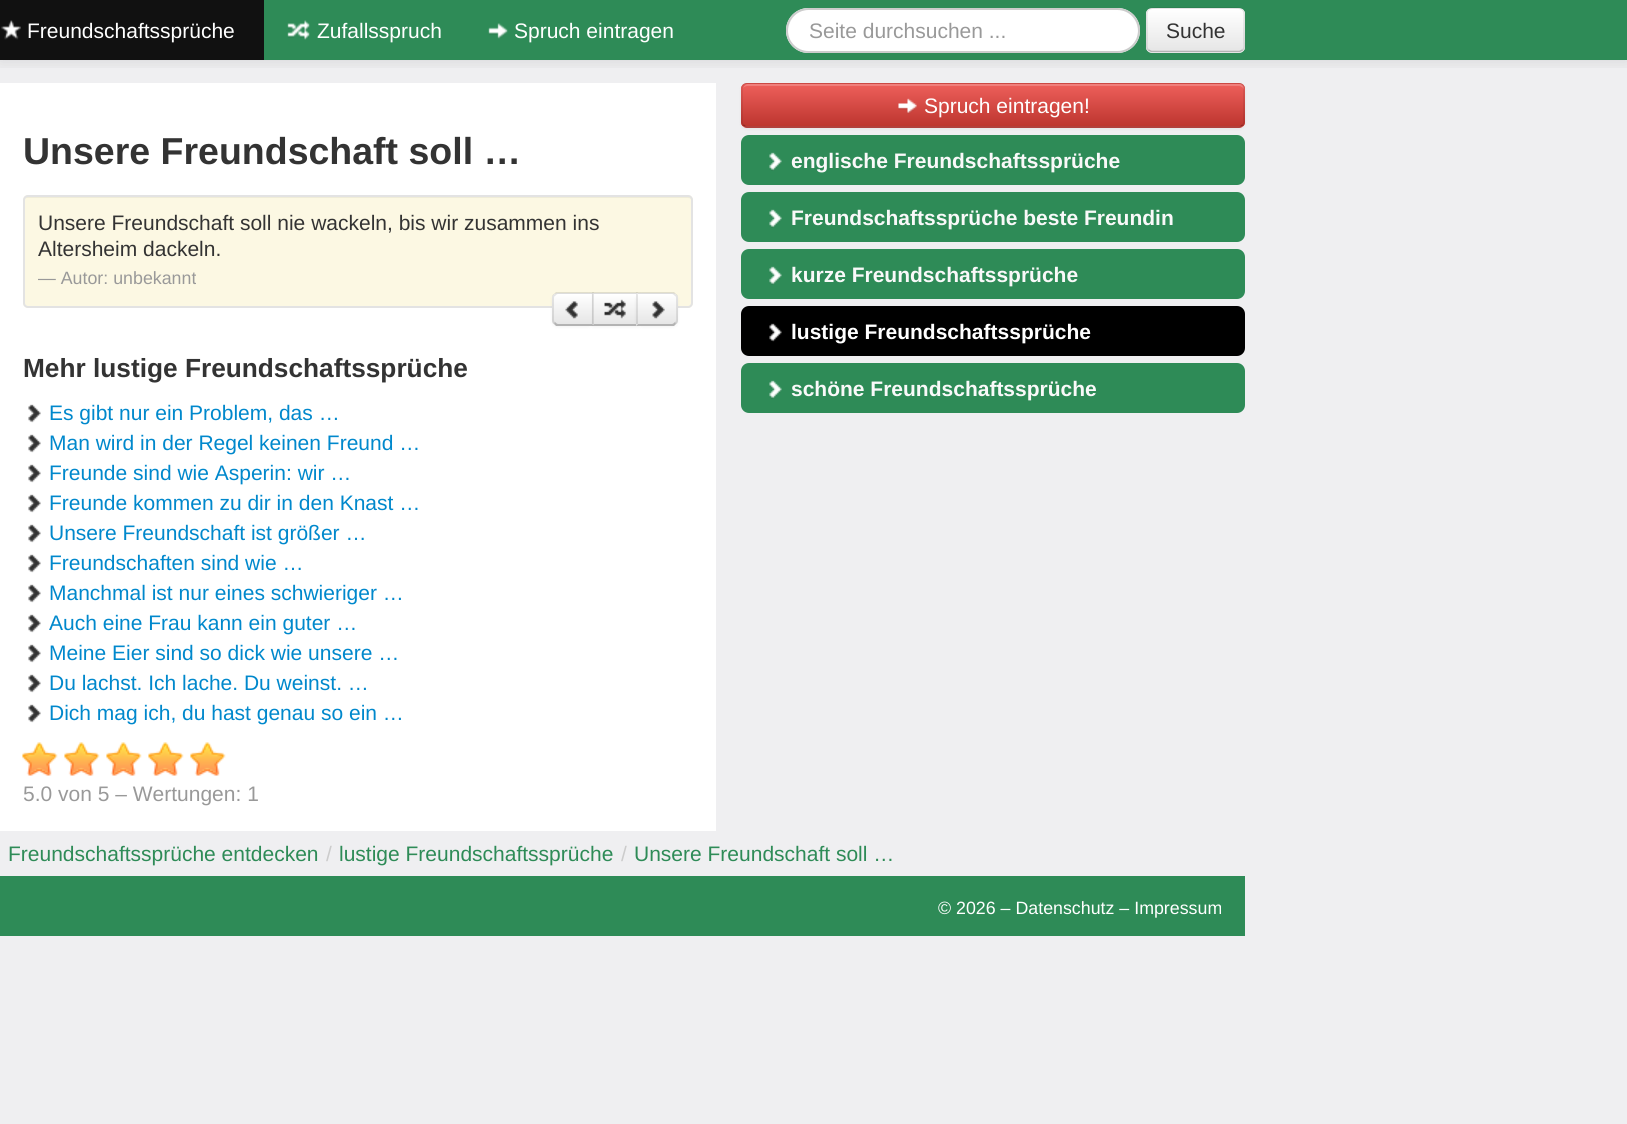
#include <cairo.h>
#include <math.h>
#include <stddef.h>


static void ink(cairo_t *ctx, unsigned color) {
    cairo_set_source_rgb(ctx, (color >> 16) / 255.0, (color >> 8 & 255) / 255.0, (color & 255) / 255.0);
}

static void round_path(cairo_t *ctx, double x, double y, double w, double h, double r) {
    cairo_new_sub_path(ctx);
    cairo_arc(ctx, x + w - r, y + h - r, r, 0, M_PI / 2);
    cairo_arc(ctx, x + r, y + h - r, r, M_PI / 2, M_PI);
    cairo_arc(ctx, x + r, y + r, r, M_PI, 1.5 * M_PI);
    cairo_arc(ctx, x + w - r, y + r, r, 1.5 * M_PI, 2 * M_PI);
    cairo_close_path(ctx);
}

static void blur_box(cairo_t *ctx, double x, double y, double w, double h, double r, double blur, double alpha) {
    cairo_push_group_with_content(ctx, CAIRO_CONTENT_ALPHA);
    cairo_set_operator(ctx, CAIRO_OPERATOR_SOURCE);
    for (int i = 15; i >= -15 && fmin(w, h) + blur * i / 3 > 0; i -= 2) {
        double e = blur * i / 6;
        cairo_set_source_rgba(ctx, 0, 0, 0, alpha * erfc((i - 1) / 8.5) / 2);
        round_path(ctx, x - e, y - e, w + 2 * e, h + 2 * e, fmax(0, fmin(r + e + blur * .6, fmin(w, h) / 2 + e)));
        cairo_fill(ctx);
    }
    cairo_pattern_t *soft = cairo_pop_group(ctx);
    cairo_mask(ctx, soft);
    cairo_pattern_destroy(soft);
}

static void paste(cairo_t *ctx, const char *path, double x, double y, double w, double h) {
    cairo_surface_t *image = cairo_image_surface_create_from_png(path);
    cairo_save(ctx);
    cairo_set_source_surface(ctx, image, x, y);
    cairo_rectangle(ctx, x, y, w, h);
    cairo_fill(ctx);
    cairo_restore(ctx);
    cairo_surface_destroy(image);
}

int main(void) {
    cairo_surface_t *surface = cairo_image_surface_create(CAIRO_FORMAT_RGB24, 1627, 1124);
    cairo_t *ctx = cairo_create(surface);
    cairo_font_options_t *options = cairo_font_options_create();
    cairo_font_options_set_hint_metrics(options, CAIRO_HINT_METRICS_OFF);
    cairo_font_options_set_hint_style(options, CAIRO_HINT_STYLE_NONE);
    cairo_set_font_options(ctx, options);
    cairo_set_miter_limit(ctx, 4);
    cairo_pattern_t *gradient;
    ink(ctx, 0xEFEFF1);
    cairo_paint(ctx);
    ink(ctx, 0x2E8B57);
    cairo_rectangle(ctx, 264, 0, 1363, 60);
    cairo_fill(ctx);
    ink(ctx, 0x000000);
    blur_box(ctx, 741, 84, 504, 45, 6, 1.5, 0.05);
    ink(ctx, 0xDA4F49);
    round_path(ctx, 741, 83, 504, 45, 6);
    cairo_fill(ctx);
    cairo_save(ctx);
    round_path(ctx, 741, 83, 504, 45, 6);
    cairo_clip(ctx);
    gradient = cairo_pattern_create_linear(993, 84, 993, 126);
    cairo_pattern_add_color_stop_rgba(gradient, 0, 0.933, 0.373, 0.357, 1);
    cairo_pattern_add_color_stop_rgba(gradient, 1, 0.741, 0.212, 0.184, 1);
    cairo_set_source(ctx, gradient);
    cairo_pattern_destroy(gradient);
    cairo_rectangle(ctx, 741, 84, 504, 42);
    cairo_fill(ctx);
    cairo_restore(ctx);
    cairo_set_source_rgba(ctx, 1, 1, 1, 0.2);
    cairo_new_path(ctx);
    cairo_move_to(ctx, 747, 86);
    cairo_line_to(ctx, 1239, 86);
    cairo_curve_to(ctx, 1241, 86, 1244, 88, 1244, 90);
    cairo_line_to(ctx, 1244, 89);
    cairo_curve_to(ctx, 1244, 86, 1242, 84, 1239, 84);
    cairo_line_to(ctx, 748, 84);
    cairo_curve_to(ctx, 746, 84, 744, 86, 743, 88);
    cairo_curve_to(ctx, 744, 87, 746, 86, 747, 86);
    cairo_close_path(ctx);
    cairo_fill(ctx);
    cairo_new_path(ctx);
    cairo_move_to(ctx, 1242.5, 125);
    cairo_curve_to(ctx, 1241.5, 126, 1240.5, 127, 1239, 127);
    cairo_line_to(ctx, 747, 127);
    cairo_curve_to(ctx, 745.5, 127, 744.5, 126, 743.5, 125);
    cairo_set_source_rgba(ctx, 0, 0, 0, 0.25);
    cairo_set_line_width(ctx, 1.5);
    cairo_stroke(ctx);
    cairo_new_path(ctx);
    cairo_move_to(ctx, 743.5, 125);
    cairo_curve_to(ctx, 742.5, 124, 742, 123, 742, 121.5);
    cairo_line_to(ctx, 742, 88.5);
    cairo_curve_to(ctx, 742, 87, 742.5, 86, 743.5, 85);
    cairo_curve_to(ctx, 744.5, 84, 745.5, 83, 747, 83);
    cairo_line_to(ctx, 1239, 83);
    cairo_curve_to(ctx, 1240.5, 83, 1241.5, 84, 1242.5, 85);
    cairo_curve_to(ctx, 1243.5, 86, 1244, 87, 1244, 88.5);
    cairo_line_to(ctx, 1244, 121.5);
    cairo_curve_to(ctx, 1244, 123, 1243.5, 124, 1242.5, 125);
    cairo_set_source_rgba(ctx, 0, 0, 0, 0.1);
    cairo_stroke(ctx);
    ink(ctx, 0xEFEFF1);
    cairo_rectangle(ctx, 745, 82, 496, 1);
    cairo_fill(ctx);
    ink(ctx, 0xFFFFFF);
    cairo_rectangle(ctx, 0, 83, 716, 748);
    cairo_fill(ctx);
    cairo_save(ctx);
    cairo_rectangle(ctx, 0, 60, 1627, 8);
    cairo_clip(ctx);
    ink(ctx, 0x000000);
    blur_box(ctx, 0, 2, 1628, 60, 0, 7.5, 0.1);
    cairo_restore(ctx);
    ink(ctx, 0x111111);
    cairo_rectangle(ctx, 0, 0, 264, 60);
    cairo_fill(ctx);
    paste(ctx, "media/1.png", 1, 20, 20, 20);
    cairo_select_font_face(ctx, "Liberation Sans", CAIRO_FONT_SLANT_NORMAL, CAIRO_FONT_WEIGHT_NORMAL);
    cairo_set_font_size(ctx, 21);
    ink(ctx, 0xFFFFFF);
    cairo_move_to(ctx, 27, 38);
    cairo_show_text(ctx, "Freundschaftssprüche");
    paste(ctx, "media/2.png", 287, 20, 23, 20);
    cairo_move_to(ctx, 317, 38);
    cairo_show_text(ctx, "Zufallsspruch");
    paste(ctx, "media/3.png", 488, 23, 20, 16);
    cairo_move_to(ctx, 514, 38);
    cairo_show_text(ctx, "Spruch eintragen");
    round_path(ctx, 786, 8, 354, 45, 22.5);
    cairo_fill(ctx);
    ink(ctx, 0xECECEC);
    cairo_new_path(ctx);
    cairo_move_to(ctx, 808, 10);
    cairo_line_to(ctx, 1118, 10);
    cairo_curve_to(ctx, 1129, 10, 1138, 20, 1138, 32);
    cairo_curve_to(ctx, 1138, 35, 1137, 39, 1136, 41);
    cairo_curve_to(ctx, 1138, 38, 1139, 34, 1139, 30);
    cairo_curve_to(ctx, 1139, 18, 1130, 9, 1118, 9);
    cairo_line_to(ctx, 809, 9);
    cairo_curve_to(ctx, 797, 9, 788, 18, 788, 30);
    cairo_line_to(ctx, 788, 31);
    cairo_curve_to(ctx, 789, 19, 797, 10, 808, 10);
    cairo_close_path(ctx);
    cairo_fill(ctx);
    round_path(ctx, 787, 9, 352, 43, 21.5);
    ink(ctx, 0xCCCCCC);
    cairo_set_line_width(ctx, 2);
    cairo_stroke(ctx);
    ink(ctx, 0x999999);
    cairo_move_to(ctx, 809, 38);
    cairo_show_text(ctx, "Seite durchsuchen ...");
    ink(ctx, 0xF5F5F5);
    round_path(ctx, 1146, 8, 99, 45, 6);
    cairo_fill(ctx);
    cairo_save(ctx);
    round_path(ctx, 1146, 8, 99, 45, 6);
    cairo_clip(ctx);
    gradient = cairo_pattern_create_linear(1196, 9, 1196, 51);
    cairo_pattern_add_color_stop_rgba(gradient, 0, 1, 1, 1, 1);
    cairo_pattern_add_color_stop_rgba(gradient, 1, 0.902, 0.902, 0.902, 1);
    cairo_set_source(ctx, gradient);
    cairo_pattern_destroy(gradient);
    cairo_rectangle(ctx, 1146, 9, 99, 42);
    cairo_fill(ctx);
    cairo_restore(ctx);
    cairo_new_path(ctx);
    cairo_move_to(ctx, 1242.5, 50);
    cairo_line_to(ctx, 1239.5, 51.5);
    cairo_line_to(ctx, 1151.5, 51.5);
    cairo_line_to(ctx, 1148.5, 50);
    ink(ctx, 0xB3B3B3);
    cairo_set_line_width(ctx, 1.5);
    cairo_stroke(ctx);
    cairo_new_path(ctx);
    cairo_move_to(ctx, 1148.5, 50);
    cairo_curve_to(ctx, 1146, 48, 1147, 44, 1147, 41);
    cairo_line_to(ctx, 1147, 30);
    cairo_curve_to(ctx, 1147, 6.5, 1143, 8, 1166.5, 8);
    cairo_line_to(ctx, 1224.5, 8);
    cairo_curve_to(ctx, 1248, 8, 1244, 6.5, 1244, 30);
    cairo_line_to(ctx, 1244, 41);
    cairo_curve_to(ctx, 1244, 44, 1245, 48, 1242.5, 50);
    cairo_set_source_rgba(ctx, 0, 0, 0, 0.1);
    cairo_stroke(ctx);
    ink(ctx, 0x333333);
    cairo_move_to(ctx, 1166, 38);
    cairo_show_text(ctx, "Suche");
    cairo_select_font_face(ctx, "Liberation Sans", CAIRO_FONT_SLANT_NORMAL, CAIRO_FONT_WEIGHT_BOLD);
    cairo_set_font_size(ctx, 37.5);
    cairo_move_to(ctx, 23, 164);
    cairo_show_text(ctx, "Unsere Freundschaft soll …");
    ink(ctx, 0xFCF8E3);
    round_path(ctx, 23, 195, 670, 113, 5);
    cairo_fill(ctx);
    ink(ctx, 0xEFECD8);
    cairo_new_path(ctx);
    cairo_move_to(ctx, 27, 198);
    cairo_line_to(ctx, 688, 198);
    cairo_curve_to(ctx, 690, 198, 692, 199, 692, 201);
    cairo_line_to(ctx, 692, 200);
    cairo_curve_to(ctx, 692, 198, 691, 197, 689, 197);
    cairo_line_to(ctx, 27, 197);
    cairo_curve_to(ctx, 25, 197, 24, 198, 24, 200);
    cairo_line_to(ctx, 24, 201);
    cairo_curve_to(ctx, 24, 199, 25, 198, 27, 198);
    cairo_close_path(ctx);
    cairo_fill(ctx);
    round_path(ctx, 24, 196, 668, 111, 4);
    ink(ctx, 0xE3E3E3);
    cairo_set_line_width(ctx, 2);
    cairo_stroke(ctx);
    cairo_select_font_face(ctx, "Liberation Sans", CAIRO_FONT_SLANT_NORMAL, CAIRO_FONT_WEIGHT_NORMAL);
    cairo_set_font_size(ctx, 21);
    ink(ctx, 0x333333);
    cairo_move_to(ctx, 38, 230);
    cairo_show_text(ctx, "Unsere Freundschaft soll nie wackeln, bis wir zusammen ins");
    cairo_move_to(ctx, 38, 256);
    cairo_show_text(ctx, "Altersheim dackeln.");
    cairo_set_font_size(ctx, 17.8);
    ink(ctx, 0x999999);
    cairo_move_to(ctx, 38, 284);
    cairo_show_text(ctx, "— Autor: unbekannt");
    ink(ctx, 0x000000);
    blur_box(ctx, 552, 294, 42, 33, 6, 1.5, 0.05);
    ink(ctx, 0xF5F5F5);
    cairo_new_path(ctx);
    cairo_move_to(ctx, 558, 293);
    cairo_line_to(ctx, 594, 293);
    cairo_line_to(ctx, 594, 326);
    cairo_line_to(ctx, 558, 326);
    cairo_curve_to(ctx, 554.5, 326, 552, 323.5, 552, 320);
    cairo_line_to(ctx, 552, 299);
    cairo_curve_to(ctx, 552, 295.5, 554.5, 293, 558, 293);
    cairo_close_path(ctx);
    cairo_fill(ctx);
    cairo_save(ctx);
    cairo_new_path(ctx);
    cairo_move_to(ctx, 558, 293);
    cairo_line_to(ctx, 594, 293);
    cairo_line_to(ctx, 594, 326);
    cairo_line_to(ctx, 558, 326);
    cairo_curve_to(ctx, 554.5, 326, 552, 323.5, 552, 320);
    cairo_line_to(ctx, 552, 299);
    cairo_curve_to(ctx, 552, 295.5, 554.5, 293, 558, 293);
    cairo_close_path(ctx);
    cairo_clip(ctx);
    gradient = cairo_pattern_create_linear(573, 294, 573, 324);
    cairo_pattern_add_color_stop_rgba(gradient, 0, 1, 1, 1, 1);
    cairo_pattern_add_color_stop_rgba(gradient, 1, 0.902, 0.902, 0.902, 1);
    cairo_set_source(ctx, gradient);
    cairo_pattern_destroy(gradient);
    cairo_rectangle(ctx, 552, 294, 41, 30);
    cairo_fill(ctx);
    cairo_restore(ctx);
    cairo_set_source_rgba(ctx, 1, 1, 1, 0.2);
    cairo_new_path(ctx);
    cairo_move_to(ctx, 558, 296);
    cairo_line_to(ctx, 592, 296);
    cairo_line_to(ctx, 592, 324);
    cairo_line_to(ctx, 593, 324);
    cairo_line_to(ctx, 593, 294);
    cairo_line_to(ctx, 559, 294);
    cairo_curve_to(ctx, 556, 294, 554, 296, 554, 299);
    cairo_line_to(ctx, 554, 300);
    cairo_curve_to(ctx, 554, 298, 556, 296, 558, 296);
    cairo_close_path(ctx);
    cairo_fill(ctx);
    cairo_set_source_rgba(ctx, 0, 0, 0, 0.1);
    cairo_new_path(ctx);
    cairo_move_to(ctx, 558, 294);
    cairo_curve_to(ctx, 557, 294, 556, 295, 555, 296);
    cairo_line_to(ctx, 554, 294);
    cairo_line_to(ctx, 556, 292);
    cairo_line_to(ctx, 594, 292);
    cairo_line_to(ctx, 592, 294);
    cairo_close_path(ctx);
    cairo_fill(ctx);
    cairo_new_path(ctx);
    cairo_move_to(ctx, 594, 292.5);
    cairo_line_to(ctx, 592, 294.5);
    cairo_line_to(ctx, 592, 323.5);
    cairo_line_to(ctx, 594, 325.5);
    cairo_close_path(ctx);
    cairo_fill(ctx);
    ink(ctx, 0xB3B3B3);
    cairo_new_path(ctx);
    cairo_move_to(ctx, 594, 326);
    cairo_line_to(ctx, 556, 326);
    cairo_line_to(ctx, 554, 324);
    cairo_line_to(ctx, 555, 322);
    cairo_curve_to(ctx, 556, 323, 557, 324, 558, 324);
    cairo_line_to(ctx, 592, 324);
    cairo_close_path(ctx);
    cairo_fill(ctx);
    cairo_set_source_rgba(ctx, 0, 0, 0, 0.1);
    cairo_new_path(ctx);
    cairo_move_to(ctx, 552, 298);
    cairo_line_to(ctx, 552, 320);
    cairo_curve_to(ctx, 552, 321.5, 552.5, 323, 553.5, 324);
    cairo_line_to(ctx, 555, 322.5);
    cairo_curve_to(ctx, 554.5, 322, 554, 321, 554, 320);
    cairo_line_to(ctx, 554, 298);
    cairo_curve_to(ctx, 554, 297, 554.5, 296, 555, 295.5);
    cairo_line_to(ctx, 553.5, 294);
    cairo_curve_to(ctx, 552.5, 295, 552, 296.5, 552, 298);
    cairo_close_path(ctx);
    cairo_fill(ctx);
    paste(ctx, "media/4.png", 565, 301, 13, 18);
    ink(ctx, 0x000000);
    blur_box(ctx, 593, 294, 45, 33, 0, 1.5, 0.05);
    ink(ctx, 0xF5F5F5);
    cairo_rectangle(ctx, 593, 293, 43, 32);
    cairo_fill(ctx);
    gradient = cairo_pattern_create_linear(615, 294, 615, 324);
    cairo_pattern_add_color_stop_rgba(gradient, 0, 1, 1, 1, 1);
    cairo_pattern_add_color_stop_rgba(gradient, 1, 0.902, 0.902, 0.902, 1);
    cairo_set_source(ctx, gradient);
    cairo_pattern_destroy(gradient);
    cairo_rectangle(ctx, 593, 294, 43, 30);
    cairo_fill(ctx);
    cairo_set_source_rgba(ctx, 0, 0, 0, 0.1);
    cairo_new_path(ctx);
    cairo_move_to(ctx, 592, 292);
    cairo_line_to(ctx, 638, 292);
    cairo_line_to(ctx, 636, 294);
    cairo_line_to(ctx, 594, 294);
    cairo_close_path(ctx);
    cairo_fill(ctx);
    ink(ctx, 0xB3B3B3);
    cairo_new_path(ctx);
    cairo_move_to(ctx, 638, 326);
    cairo_line_to(ctx, 592, 326);
    cairo_line_to(ctx, 594, 324);
    cairo_line_to(ctx, 636, 324);
    cairo_close_path(ctx);
    cairo_fill(ctx);
    cairo_set_source_rgba(ctx, 0, 0, 0, 0.1);
    cairo_new_path(ctx);
    cairo_move_to(ctx, 592.5, 325.5);
    cairo_line_to(ctx, 592.5, 292.5);
    cairo_line_to(ctx, 594, 294);
    cairo_line_to(ctx, 594, 324);
    cairo_close_path(ctx);
    cairo_fill(ctx);
    paste(ctx, "media/5.png", 604, 299, 22, 20);
    ink(ctx, 0x000000);
    blur_box(ctx, 636, 294, 42, 33, 6, 1.5, 0.05);
    ink(ctx, 0xF5F5F5);
    cairo_new_path(ctx);
    cairo_move_to(ctx, 636, 293);
    cairo_line_to(ctx, 672, 293);
    cairo_curve_to(ctx, 675.5, 293, 678, 295.5, 678, 299);
    cairo_line_to(ctx, 678, 320);
    cairo_curve_to(ctx, 678, 323.5, 675.5, 326, 672, 326);
    cairo_line_to(ctx, 636, 326);
    cairo_close_path(ctx);
    cairo_fill(ctx);
    cairo_save(ctx);
    cairo_new_path(ctx);
    cairo_move_to(ctx, 636, 293);
    cairo_line_to(ctx, 672, 293);
    cairo_curve_to(ctx, 675.5, 293, 678, 295.5, 678, 299);
    cairo_line_to(ctx, 678, 320);
    cairo_curve_to(ctx, 678, 323.5, 675.5, 326, 672, 326);
    cairo_line_to(ctx, 636, 326);
    cairo_close_path(ctx);
    cairo_clip(ctx);
    gradient = cairo_pattern_create_linear(657, 294, 657, 324);
    cairo_pattern_add_color_stop_rgba(gradient, 0, 1, 1, 1, 1);
    cairo_pattern_add_color_stop_rgba(gradient, 1, 0.902, 0.902, 0.902, 1);
    cairo_set_source(ctx, gradient);
    cairo_pattern_destroy(gradient);
    cairo_rectangle(ctx, 636, 294, 42, 30);
    cairo_fill(ctx);
    cairo_restore(ctx);
    cairo_set_source_rgba(ctx, 1, 1, 1, 0.2);
    cairo_new_path(ctx);
    cairo_move_to(ctx, 638, 296);
    cairo_line_to(ctx, 672, 296);
    cairo_curve_to(ctx, 674, 296, 676, 298, 676, 300);
    cairo_line_to(ctx, 676, 321);
    cairo_line_to(ctx, 676, 322.5);
    cairo_curve_to(ctx, 676.5, 321.5, 677, 320.5, 677, 319);
    cairo_line_to(ctx, 677, 299);
    cairo_curve_to(ctx, 677, 296, 675, 294, 672, 294);
    cairo_line_to(ctx, 638, 294);
    cairo_close_path(ctx);
    cairo_fill(ctx);
    cairo_set_source_rgba(ctx, 0, 0, 0, 0.1);
    cairo_new_path(ctx);
    cairo_move_to(ctx, 638, 294);
    cairo_line_to(ctx, 636, 292);
    cairo_line_to(ctx, 674, 292);
    cairo_line_to(ctx, 676, 294);
    cairo_line_to(ctx, 675, 296);
    cairo_curve_to(ctx, 674, 295, 673, 294, 672, 294);
    cairo_close_path(ctx);
    cairo_fill(ctx);
    cairo_new_path(ctx);
    cairo_move_to(ctx, 678, 320);
    cairo_line_to(ctx, 678, 298);
    cairo_curve_to(ctx, 678, 296.5, 677.5, 295, 676.5, 294);
    cairo_line_to(ctx, 675, 295.5);
    cairo_curve_to(ctx, 675.5, 296, 676, 297, 676, 298);
    cairo_line_to(ctx, 676, 320);
    cairo_curve_to(ctx, 676, 321, 675.5, 322, 675, 322.5);
    cairo_line_to(ctx, 676.5, 324);
    cairo_curve_to(ctx, 677.5, 323, 678, 321.5, 678, 320);
    cairo_close_path(ctx);
    cairo_fill(ctx);
    ink(ctx, 0xB3B3B3);
    cairo_new_path(ctx);
    cairo_move_to(ctx, 674, 326);
    cairo_line_to(ctx, 636, 326);
    cairo_line_to(ctx, 638, 324);
    cairo_line_to(ctx, 672, 324);
    cairo_curve_to(ctx, 673, 324, 674, 323, 675, 322);
    cairo_line_to(ctx, 676, 324);
    cairo_close_path(ctx);
    cairo_fill(ctx);
    cairo_set_source_rgba(ctx, 0, 0, 0, 0.1);
    cairo_new_path(ctx);
    cairo_move_to(ctx, 636, 325.5);
    cairo_line_to(ctx, 638, 323.5);
    cairo_line_to(ctx, 638, 294.5);
    cairo_line_to(ctx, 636, 292.5);
    cairo_close_path(ctx);
    cairo_fill(ctx);
    paste(ctx, "media/6.png", 652, 301, 13, 18);
    cairo_select_font_face(ctx, "Liberation Sans", CAIRO_FONT_SLANT_NORMAL, CAIRO_FONT_WEIGHT_BOLD);
    cairo_set_font_size(ctx, 26.25);
    ink(ctx, 0x333333);
    cairo_move_to(ctx, 23, 377);
    cairo_show_text(ctx, "Mehr lustige Freundschaftssprüche");
    paste(ctx, "media/7.png", 28, 404, 13, 19);
    cairo_select_font_face(ctx, "Liberation Sans", CAIRO_FONT_SLANT_NORMAL, CAIRO_FONT_WEIGHT_NORMAL);
    cairo_set_font_size(ctx, 21);
    ink(ctx, 0x0088CC);
    cairo_move_to(ctx, 49, 420);
    cairo_show_text(ctx, "Es gibt nur ein Problem, das …");
    paste(ctx, "media/7.png", 28, 434, 13, 19);
    cairo_move_to(ctx, 49, 450);
    cairo_show_text(ctx, "Man wird in der Regel keinen Freund …");
    paste(ctx, "media/7.png", 28, 464, 13, 19);
    cairo_move_to(ctx, 49, 480);
    cairo_show_text(ctx, "Freunde sind wie Asperin: wir …");
    paste(ctx, "media/7.png", 28, 494, 13, 19);
    cairo_move_to(ctx, 49, 510);
    cairo_show_text(ctx, "Freunde kommen zu dir in den Knast …");
    paste(ctx, "media/7.png", 28, 524, 13, 19);
    cairo_move_to(ctx, 49, 540);
    cairo_show_text(ctx, "Unsere Freundschaft ist größer …");
    paste(ctx, "media/7.png", 28, 554, 13, 19);
    cairo_move_to(ctx, 49, 570);
    cairo_show_text(ctx, "Freundschaften sind wie …");
    paste(ctx, "media/7.png", 28, 584, 13, 19);
    cairo_move_to(ctx, 49, 600);
    cairo_show_text(ctx, "Manchmal ist nur eines schwieriger …");
    paste(ctx, "media/7.png", 28, 614, 13, 19);
    cairo_move_to(ctx, 49, 630);
    cairo_show_text(ctx, "Auch eine Frau kann ein guter …");
    paste(ctx, "media/7.png", 28, 644, 13, 19);
    cairo_move_to(ctx, 49, 660);
    cairo_show_text(ctx, "Meine Eier sind so dick wie unsere …");
    paste(ctx, "media/7.png", 28, 674, 13, 19);
    cairo_move_to(ctx, 49, 690);
    cairo_show_text(ctx, "Du lachst. Ich lache. Du weinst. …");
    paste(ctx, "media/7.png", 28, 704, 13, 19);
    cairo_move_to(ctx, 49, 720);
    cairo_show_text(ctx, "Dich mag ich, du hast genau so ein …");
    paste(ctx, "media/8.png", 22, 742, 36, 34);
    paste(ctx, "media/8.png", 64, 742, 36, 34);
    paste(ctx, "media/8.png", 106, 742, 36, 34);
    paste(ctx, "media/8.png", 148, 742, 36, 34);
    paste(ctx, "media/8.png", 190, 742, 36, 34);
    ink(ctx, 0x999999);
    cairo_move_to(ctx, 23, 801);
    cairo_show_text(ctx, "5.0 von 5 – Wertungen: 1");
    paste(ctx, "media/9.png", 898, 98, 19, 16);
    ink(ctx, 0xFFFFFF);
    cairo_move_to(ctx, 924, 113);
    cairo_show_text(ctx, "Spruch eintragen!");
    ink(ctx, 0x2E8B57);
    round_path(ctx, 741, 135, 504, 50, 8);
    cairo_fill(ctx);
    paste(ctx, "media/10.png", 769, 152, 13, 19);
    cairo_select_font_face(ctx, "Liberation Sans", CAIRO_FONT_SLANT_NORMAL, CAIRO_FONT_WEIGHT_BOLD);
    ink(ctx, 0xF9F9F9);
    cairo_move_to(ctx, 791, 168);
    cairo_show_text(ctx, "englische Freundschaftssprüche");
    ink(ctx, 0x2E8B57);
    round_path(ctx, 741, 192, 504, 50, 8);
    cairo_fill(ctx);
    paste(ctx, "media/10.png", 769, 209, 13, 19);
    ink(ctx, 0xF9F9F9);
    cairo_move_to(ctx, 791, 225);
    cairo_show_text(ctx, "Freundschaftssprüche beste Freundin");
    ink(ctx, 0x2E8B57);
    round_path(ctx, 741, 249, 504, 50, 8);
    cairo_fill(ctx);
    paste(ctx, "media/10.png", 769, 266, 13, 19);
    ink(ctx, 0xF9F9F9);
    cairo_move_to(ctx, 791, 282);
    cairo_show_text(ctx, "kurze Freundschaftssprüche");
    ink(ctx, 0x000000);
    round_path(ctx, 741, 306, 504, 50, 8);
    cairo_fill(ctx);
    paste(ctx, "media/11.png", 769, 323, 13, 19);
    ink(ctx, 0xFFFFFF);
    cairo_move_to(ctx, 791, 339);
    cairo_show_text(ctx, "lustige Freundschaftssprüche");
    ink(ctx, 0x2E8B57);
    round_path(ctx, 741, 363, 504, 50, 8);
    cairo_fill(ctx);
    paste(ctx, "media/10.png", 769, 380, 13, 19);
    ink(ctx, 0xF9F9F9);
    cairo_move_to(ctx, 791, 396);
    cairo_show_text(ctx, "schöne Freundschaftssprüche");
    cairo_select_font_face(ctx, "Liberation Sans", CAIRO_FONT_SLANT_NORMAL, CAIRO_FONT_WEIGHT_NORMAL);
    ink(ctx, 0x2E8B57);
    cairo_move_to(ctx, 8, 861);
    cairo_show_text(ctx, "Freundschaftssprüche entdecken");
    ink(ctx, 0xCCCCCC);
    cairo_move_to(ctx, 326, 861);
    cairo_show_text(ctx, "/");
    ink(ctx, 0x2E8B57);
    cairo_move_to(ctx, 339, 861);
    cairo_show_text(ctx, "lustige Freundschaftssprüche");
    ink(ctx, 0xCCCCCC);
    cairo_move_to(ctx, 621, 861);
    cairo_show_text(ctx, "/");
    ink(ctx, 0x2E8B57);
    cairo_move_to(ctx, 634, 861);
    cairo_show_text(ctx, "Unsere Freundschaft soll …");
    cairo_rectangle(ctx, 0, 876, 1245, 60);
    cairo_fill(ctx);
    cairo_set_font_size(ctx, 17.8);
    ink(ctx, 0xFFFFFF);
    cairo_move_to(ctx, 938, 914);
    cairo_show_text(ctx, "© 2026 – Datenschutz – Impressum");
    cairo_surface_write_to_png(surface, "image.png");
    cairo_font_options_destroy(options);
    cairo_destroy(ctx);
    cairo_surface_destroy(surface);
    return 0;
}
